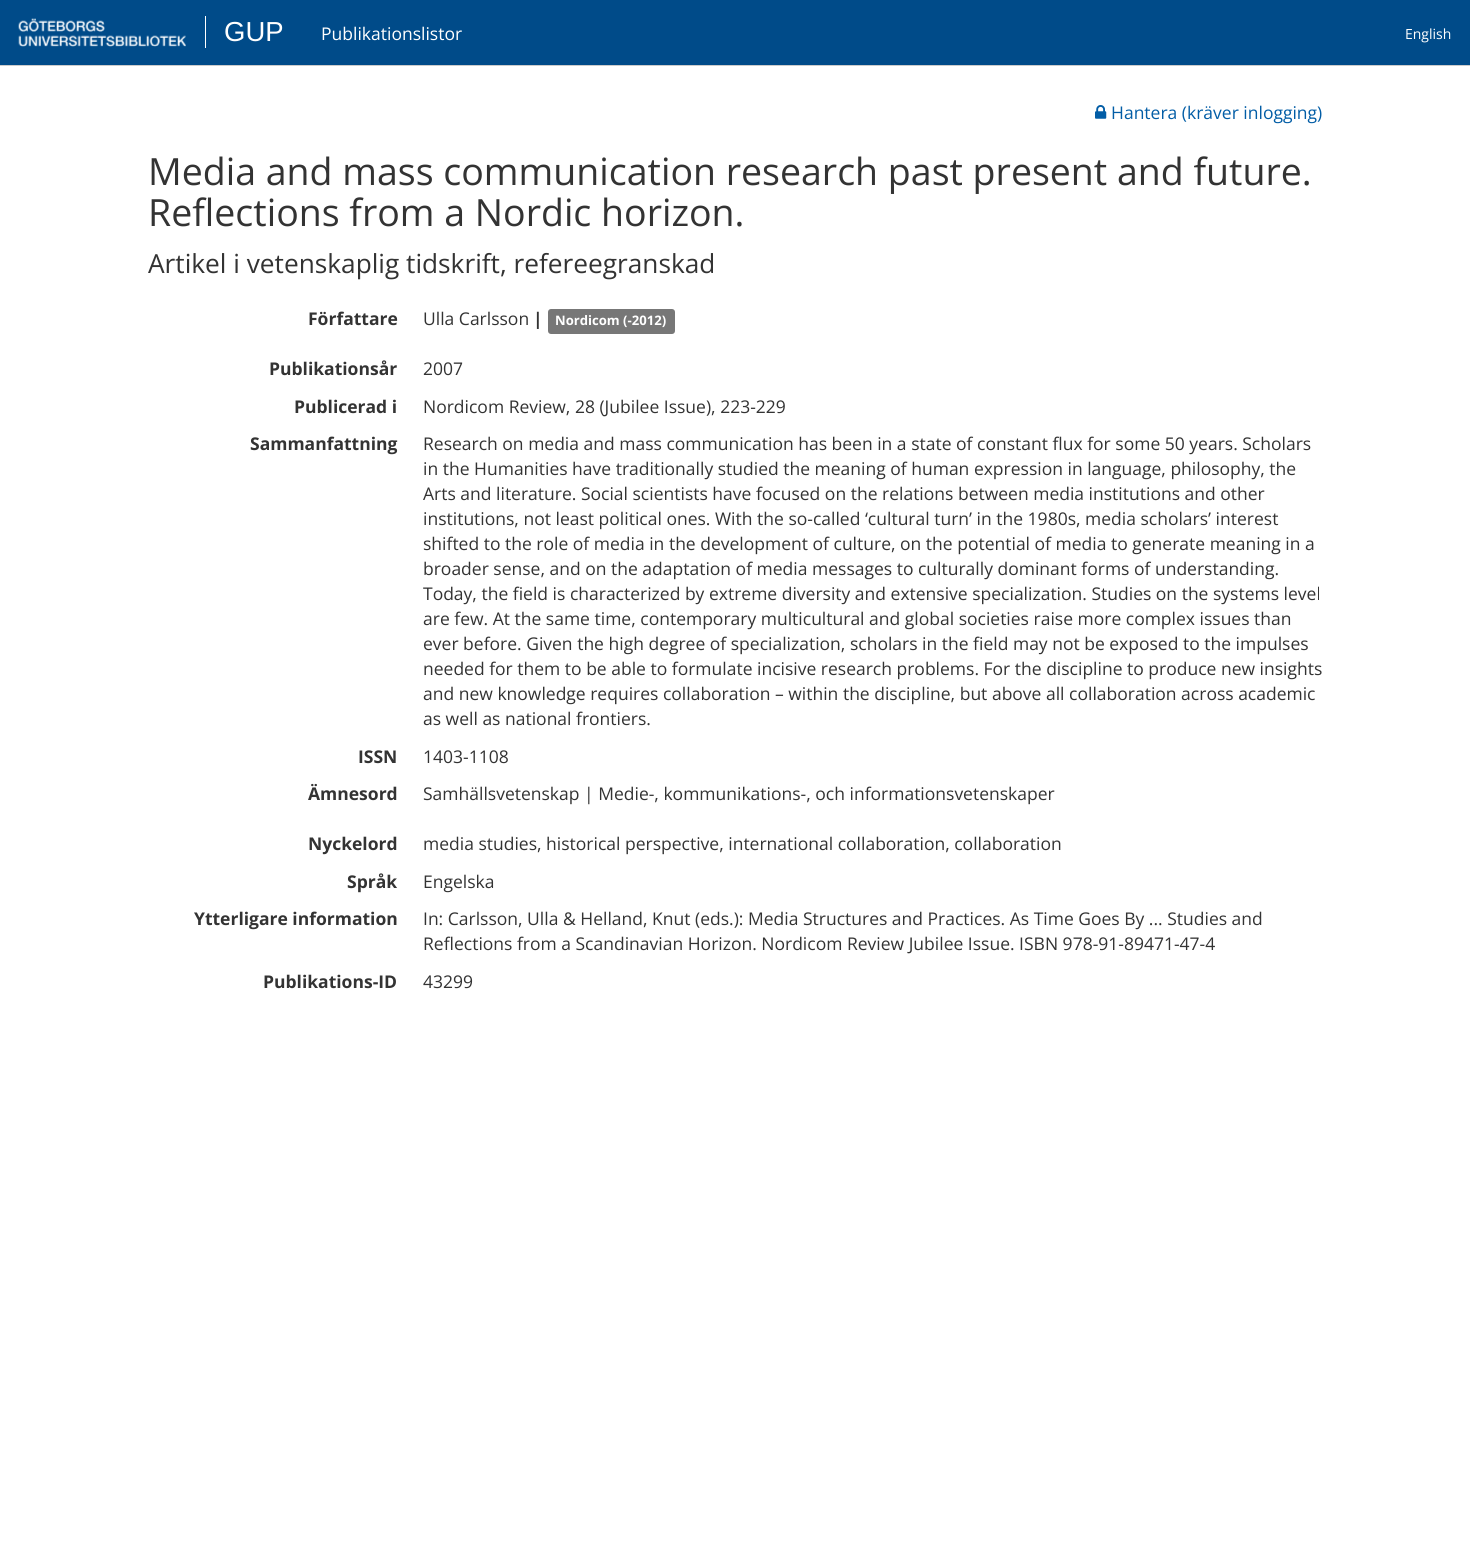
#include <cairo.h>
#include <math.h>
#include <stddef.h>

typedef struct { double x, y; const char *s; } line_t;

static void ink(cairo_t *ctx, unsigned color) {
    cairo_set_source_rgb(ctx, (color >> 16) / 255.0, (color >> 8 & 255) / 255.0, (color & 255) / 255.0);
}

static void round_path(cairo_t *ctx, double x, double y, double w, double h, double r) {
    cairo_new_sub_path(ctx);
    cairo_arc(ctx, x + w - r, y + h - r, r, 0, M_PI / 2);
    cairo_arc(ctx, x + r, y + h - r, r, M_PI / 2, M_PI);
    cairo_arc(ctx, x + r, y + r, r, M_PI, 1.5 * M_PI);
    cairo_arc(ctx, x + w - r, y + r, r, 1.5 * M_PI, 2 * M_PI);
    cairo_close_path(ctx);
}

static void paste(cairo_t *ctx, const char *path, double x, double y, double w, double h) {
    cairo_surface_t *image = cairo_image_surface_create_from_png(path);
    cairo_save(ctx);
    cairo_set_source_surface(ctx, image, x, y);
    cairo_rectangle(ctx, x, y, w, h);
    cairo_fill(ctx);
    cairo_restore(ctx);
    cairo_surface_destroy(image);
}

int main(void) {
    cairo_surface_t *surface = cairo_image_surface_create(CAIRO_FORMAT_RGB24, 1470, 1563);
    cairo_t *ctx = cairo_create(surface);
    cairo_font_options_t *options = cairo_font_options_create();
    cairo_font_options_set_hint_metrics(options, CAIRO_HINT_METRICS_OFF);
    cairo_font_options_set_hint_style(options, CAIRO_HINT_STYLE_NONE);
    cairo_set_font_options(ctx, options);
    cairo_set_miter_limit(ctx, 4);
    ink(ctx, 0xFFFFFF);
    cairo_paint(ctx);
    ink(ctx, 0x004B89);
    cairo_rectangle(ctx, 0, 0, 1470, 65);
    cairo_fill(ctx);
    ink(ctx, 0xCCCCCC);
    cairo_rectangle(ctx, 0, 65, 1470, 1);
    cairo_fill(ctx);
    paste(ctx, "media/1.png", 18, 18, 168, 29);
    ink(ctx, 0xFFFFFF);
    cairo_rectangle(ctx, 205, 16, 1, 32);
    cairo_fill(ctx);
    cairo_select_font_face(ctx, "Liberation Sans", CAIRO_FONT_SLANT_NORMAL, CAIRO_FONT_WEIGHT_NORMAL);
    cairo_set_font_size(ctx, 27.5);
    cairo_move_to(ctx, 224, 41);
    cairo_show_text(ctx, "GUP");
    cairo_select_font_face(ctx, "Open Sans", CAIRO_FONT_SLANT_NORMAL, CAIRO_FONT_WEIGHT_NORMAL);
    cairo_set_font_size(ctx, 17.5);
    cairo_move_to(ctx, 321, 40);
    cairo_show_text(ctx, "Publikationslistor");
    cairo_set_font_size(ctx, 14);
    cairo_move_to(ctx, 1405, 39);
    cairo_show_text(ctx, "English");
    paste(ctx, "media/2.png", 1095, 105, 12, 14);
    cairo_set_font_size(ctx, 17.5);
    ink(ctx, 0x025DA6);
    cairo_move_to(ctx, 1111, 119);
    cairo_show_text(ctx, "Hantera (kräver inlogging)");
    cairo_set_font_size(ctx, 37.5);
    ink(ctx, 0x333333);
    cairo_move_to(ctx, 148, 185);
    cairo_show_text(ctx, "Media and mass communication research past present and future.");
    cairo_move_to(ctx, 148, 226);
    cairo_show_text(ctx, "Reflections from a Nordic horizon.");
    cairo_set_font_size(ctx, 26.25);
    cairo_move_to(ctx, 148, 273);
    cairo_show_text(ctx, "Artikel i vetenskaplig tidskrift, refereegranskad");
    cairo_select_font_face(ctx, "Open Sans", CAIRO_FONT_SLANT_NORMAL, CAIRO_FONT_WEIGHT_BOLD);
    cairo_set_font_size(ctx, 17.5);
    cairo_move_to(ctx, 308, 325);
    cairo_show_text(ctx, "Författare");
    cairo_select_font_face(ctx, "Open Sans", CAIRO_FONT_SLANT_NORMAL, CAIRO_FONT_WEIGHT_NORMAL);
    cairo_move_to(ctx, 423, 325);
    cairo_show_text(ctx, "Ulla Carlsson");
    cairo_select_font_face(ctx, "Open Sans", CAIRO_FONT_SLANT_NORMAL, CAIRO_FONT_WEIGHT_BOLD);
    cairo_move_to(ctx, 533, 325);
    cairo_show_text(ctx, "|");
    ink(ctx, 0x777777);
    round_path(ctx, 548, 309, 127, 25, 3);
    cairo_fill(ctx);
    cairo_set_font_size(ctx, 13.1);
    ink(ctx, 0xFFFFFF);
    cairo_move_to(ctx, 555, 325);
    cairo_show_text(ctx, "Nordicom (-2012)");
    cairo_set_font_size(ctx, 17.5);
    ink(ctx, 0x333333);
    cairo_move_to(ctx, 269, 375);
    cairo_show_text(ctx, "Publikationsår");
    cairo_select_font_face(ctx, "Open Sans", CAIRO_FONT_SLANT_NORMAL, CAIRO_FONT_WEIGHT_NORMAL);
    cairo_move_to(ctx, 423, 375);
    cairo_show_text(ctx, "2007");
    cairo_select_font_face(ctx, "Open Sans", CAIRO_FONT_SLANT_NORMAL, CAIRO_FONT_WEIGHT_BOLD);
    cairo_move_to(ctx, 294, 413);
    cairo_show_text(ctx, "Publicerad i");
    cairo_select_font_face(ctx, "Open Sans", CAIRO_FONT_SLANT_NORMAL, CAIRO_FONT_WEIGHT_NORMAL);
    cairo_move_to(ctx, 423, 413);
    cairo_show_text(ctx, "Nordicom Review, 28 (Jubilee Issue), 223-229");
    cairo_select_font_face(ctx, "Open Sans", CAIRO_FONT_SLANT_NORMAL, CAIRO_FONT_WEIGHT_BOLD);
    cairo_move_to(ctx, 250, 450);
    cairo_show_text(ctx, "Sammanfattning");
    cairo_select_font_face(ctx, "Open Sans", CAIRO_FONT_SLANT_NORMAL, CAIRO_FONT_WEIGHT_NORMAL);
    {
        static const line_t items[] = {
            {423, 450, "Research on media and mass communication has been in a state of constant flux for some 50 years. Scholars"},
            {423, 475, "in the Humanities have traditionally studied the meaning of human expression in language, philosophy, the"},
            {423, 500, "Arts and literature. Social scientists have focused on the relations between media institutions and other"},
            {423, 525, "institutions, not least political ones. With the so-called ‘cultural turn’ in the 1980s, media scholars’ interest"},
            {423, 550, "shifted to the role of media in the development of culture, on the potential of media to generate meaning in a"},
            {423, 575, "broader sense, and on the adaptation of media messages to culturally dominant forms of understanding."},
            {423, 600, "Today, the field is characterized by extreme diversity and extensive specialization. Studies on the systems level"},
            {423, 625, "are few. At the same time, contemporary multicultural and global societies raise more complex issues than"},
            {423, 650, "ever before. Given the high degree of specialization, scholars in the field may not be exposed to the impulses"},
            {423, 675, "needed for them to be able to formulate incisive research problems. For the discipline to produce new insights"},
            {423, 700, "and new knowledge requires collaboration – within the discipline, but above all collaboration across academic"},
            {423, 725, "as well as national frontiers."},
        };
        for (size_t i = 0; i < sizeof items / sizeof *items; i++) {
            cairo_move_to(ctx, items[i].x, items[i].y);
            cairo_show_text(ctx, items[i].s);
        }
    }
    cairo_select_font_face(ctx, "Open Sans", CAIRO_FONT_SLANT_NORMAL, CAIRO_FONT_WEIGHT_BOLD);
    cairo_move_to(ctx, 358, 763);
    cairo_show_text(ctx, "ISSN");
    cairo_select_font_face(ctx, "Open Sans", CAIRO_FONT_SLANT_NORMAL, CAIRO_FONT_WEIGHT_NORMAL);
    cairo_move_to(ctx, 423, 763);
    cairo_show_text(ctx, "1403-1108");
    cairo_select_font_face(ctx, "Open Sans", CAIRO_FONT_SLANT_NORMAL, CAIRO_FONT_WEIGHT_BOLD);
    cairo_move_to(ctx, 308, 800);
    cairo_show_text(ctx, "Ämnesord");
    cairo_select_font_face(ctx, "Open Sans", CAIRO_FONT_SLANT_NORMAL, CAIRO_FONT_WEIGHT_NORMAL);
    cairo_move_to(ctx, 423, 800);
    cairo_show_text(ctx, "Samhällsvetenskap | Medie-, kommunikations-, och informationsvetenskaper");
    cairo_select_font_face(ctx, "Open Sans", CAIRO_FONT_SLANT_NORMAL, CAIRO_FONT_WEIGHT_BOLD);
    cairo_move_to(ctx, 308, 850);
    cairo_show_text(ctx, "Nyckelord");
    cairo_select_font_face(ctx, "Open Sans", CAIRO_FONT_SLANT_NORMAL, CAIRO_FONT_WEIGHT_NORMAL);
    cairo_move_to(ctx, 423, 850);
    cairo_show_text(ctx, "media studies, historical perspective, international collaboration, collaboration");
    cairo_select_font_face(ctx, "Open Sans", CAIRO_FONT_SLANT_NORMAL, CAIRO_FONT_WEIGHT_BOLD);
    cairo_move_to(ctx, 347, 888);
    cairo_show_text(ctx, "Språk");
    cairo_select_font_face(ctx, "Open Sans", CAIRO_FONT_SLANT_NORMAL, CAIRO_FONT_WEIGHT_NORMAL);
    cairo_move_to(ctx, 423, 888);
    cairo_show_text(ctx, "Engelska");
    cairo_select_font_face(ctx, "Open Sans", CAIRO_FONT_SLANT_NORMAL, CAIRO_FONT_WEIGHT_BOLD);
    cairo_move_to(ctx, 194, 925);
    cairo_show_text(ctx, "Ytterligare information");
    cairo_select_font_face(ctx, "Open Sans", CAIRO_FONT_SLANT_NORMAL, CAIRO_FONT_WEIGHT_NORMAL);
    cairo_move_to(ctx, 423, 925);
    cairo_show_text(ctx, "In: Carlsson, Ulla & Helland, Knut (eds.): Media Structures and Practices. As Time Goes By ... Studies and");
    cairo_move_to(ctx, 423, 950);
    cairo_show_text(ctx, "Reflections from a Scandinavian Horizon. Nordicom Review Jubilee Issue. ISBN 978-91-89471-47-4");
    cairo_select_font_face(ctx, "Open Sans", CAIRO_FONT_SLANT_NORMAL, CAIRO_FONT_WEIGHT_BOLD);
    cairo_move_to(ctx, 263, 988);
    cairo_show_text(ctx, "Publikations-ID");
    cairo_select_font_face(ctx, "Open Sans", CAIRO_FONT_SLANT_NORMAL, CAIRO_FONT_WEIGHT_NORMAL);
    cairo_move_to(ctx, 423, 988);
    cairo_show_text(ctx, "43299");
    cairo_surface_write_to_png(surface, "image.png");
    cairo_font_options_destroy(options);
    cairo_destroy(ctx);
    cairo_surface_destroy(surface);
    return 0;
}
